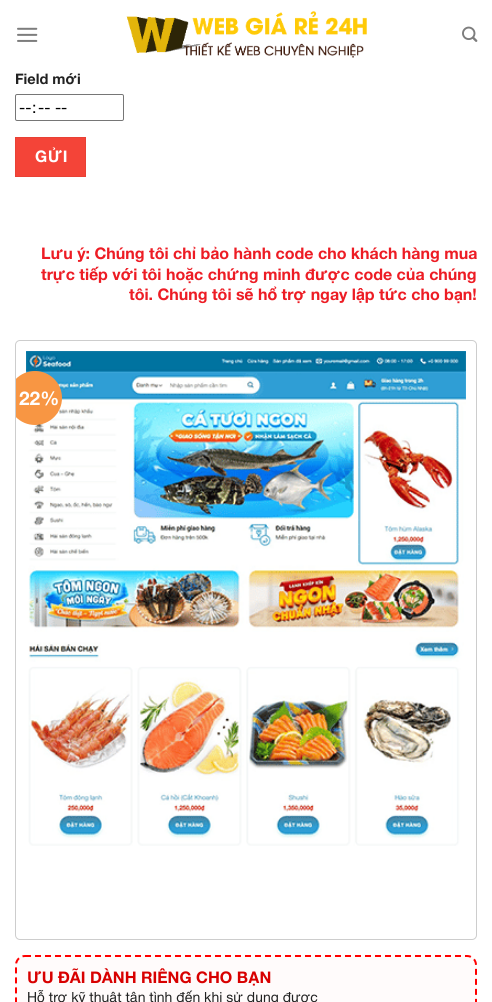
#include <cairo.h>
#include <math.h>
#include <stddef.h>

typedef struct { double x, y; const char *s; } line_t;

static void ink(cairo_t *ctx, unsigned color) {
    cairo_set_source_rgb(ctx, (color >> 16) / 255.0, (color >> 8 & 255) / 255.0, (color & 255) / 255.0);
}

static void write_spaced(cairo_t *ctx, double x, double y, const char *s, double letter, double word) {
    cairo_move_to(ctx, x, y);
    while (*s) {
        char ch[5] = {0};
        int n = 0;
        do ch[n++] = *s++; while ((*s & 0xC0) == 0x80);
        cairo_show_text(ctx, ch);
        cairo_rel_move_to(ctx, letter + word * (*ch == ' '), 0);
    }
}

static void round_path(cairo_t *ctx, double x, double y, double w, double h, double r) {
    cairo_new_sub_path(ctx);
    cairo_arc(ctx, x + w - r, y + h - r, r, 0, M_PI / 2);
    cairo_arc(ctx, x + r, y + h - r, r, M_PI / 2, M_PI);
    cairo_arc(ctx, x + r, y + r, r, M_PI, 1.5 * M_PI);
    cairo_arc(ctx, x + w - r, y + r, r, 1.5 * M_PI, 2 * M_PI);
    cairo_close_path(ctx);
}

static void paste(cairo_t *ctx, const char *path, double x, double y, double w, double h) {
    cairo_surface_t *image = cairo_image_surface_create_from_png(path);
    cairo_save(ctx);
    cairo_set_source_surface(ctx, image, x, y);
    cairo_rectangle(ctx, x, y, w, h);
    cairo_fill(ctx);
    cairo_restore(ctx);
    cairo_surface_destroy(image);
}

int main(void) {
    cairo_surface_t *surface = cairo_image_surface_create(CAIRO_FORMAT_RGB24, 492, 1002);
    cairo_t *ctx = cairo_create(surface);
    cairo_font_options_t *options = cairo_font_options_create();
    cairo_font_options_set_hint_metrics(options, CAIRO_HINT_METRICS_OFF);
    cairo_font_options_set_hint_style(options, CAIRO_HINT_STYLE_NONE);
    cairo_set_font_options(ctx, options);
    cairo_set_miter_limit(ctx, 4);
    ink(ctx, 0xFFFFFF);
    cairo_paint(ctx);
    paste(ctx, "media/1.png", 17, 27, 21, 15);
    paste(ctx, "media/2.png", 126, 11, 241, 47);
    paste(ctx, "media/3.png", 462, 26, 16, 16);
    cairo_select_font_face(ctx, "Helvetica Neue", CAIRO_FONT_SLANT_NORMAL, CAIRO_FONT_WEIGHT_BOLD);
    cairo_set_font_size(ctx, 14.5);
    ink(ctx, 0x222222);
    cairo_move_to(ctx, 15, 84);
    cairo_show_text(ctx, "Field mới");
    round_path(ctx, 15.5, 94.5, 108, 26, 1.5);
    ink(ctx, 0x767676);
    cairo_set_line_width(ctx, 1);
    cairo_stroke(ctx);
    cairo_select_font_face(ctx, "Helvetica Neue", CAIRO_FONT_SLANT_NORMAL, CAIRO_FONT_WEIGHT_NORMAL);
    cairo_set_font_size(ctx, 16);
    ink(ctx, 0x000000);
    {
        static const line_t items[] = {
            {19, 113, "--"},
            {32, 113, ":"},
            {38, 113, "-- --"},
        };
        for (size_t i = 0; i < sizeof items / sizeof *items; i++) {
            cairo_move_to(ctx, items[i].x, items[i].y);
            cairo_show_text(ctx, items[i].s);
        }
    }
    ink(ctx, 0xF44438);
    cairo_rectangle(ctx, 15.5, 137.5, 70, 39);
    cairo_fill_preserve(ctx);
    ink(ctx, 0xE84135);
    cairo_stroke(ctx);
    cairo_select_font_face(ctx, "Helvetica Neue", CAIRO_FONT_SLANT_NORMAL, CAIRO_FONT_WEIGHT_BOLD);
    ink(ctx, 0xFFFFFF);
    write_spaced(ctx, 35, 162, "GỬI", 0.5, 0);
    ink(ctx, 0xED1C24);
    {
        static const line_t items[] = {
            {41, 259, "Lưu ý: Chúng tôi chỉ bảo hành code cho khách hàng mua"},
            {41, 280, "trực tiếp với tôi hoặc chứng minh được code của chúng"},
            {129, 300, "tôi. Chúng tôi sẽ hổ trợ ngay lập tức cho bạn!"},
        };
        for (size_t i = 0; i < sizeof items / sizeof *items; i++) {
            cairo_move_to(ctx, items[i].x, items[i].y);
            cairo_show_text(ctx, items[i].s);
        }
    }
    round_path(ctx, 15.5, 340.5, 461, 599, 4.5);
    ink(ctx, 0xCDCDCD);
    cairo_stroke(ctx);
    paste(ctx, "media/4.png", 26, 351, 440, 495);
    cairo_save(ctx);
    round_path(ctx, 16, 341, 460, 598, 4);
    cairo_clip(ctx);
    ink(ctx, 0xF89643);
    cairo_arc(ctx, 35, 398, 27, 0, 2 * M_PI);
    cairo_fill(ctx);
    cairo_restore(ctx);
    cairo_set_font_size(ctx, 19);
    ink(ctx, 0xFFFFFF);
    cairo_move_to(ctx, 19, 405);
    cairo_show_text(ctx, "22%");
    ink(ctx, 0xFFFBFB);
    round_path(ctx, 15, 955, 462, 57, 10);
    cairo_fill(ctx);
    cairo_new_path(ctx);
    cairo_move_to(ctx, 25, 956);
    cairo_line_to(ctx, 467, 956);
    cairo_curve_to(ctx, 472, 956, 476, 960, 476, 965);
    cairo_line_to(ctx, 476, 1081);
    cairo_curve_to(ctx, 476, 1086, 472, 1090, 467, 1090);
    cairo_line_to(ctx, 25, 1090);
    cairo_curve_to(ctx, 20, 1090, 16, 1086, 16, 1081);
    cairo_line_to(ctx, 16, 965);
    cairo_curve_to(ctx, 16, 960, 20, 956, 25, 956);
    cairo_close_path(ctx);
    ink(ctx, 0xFF0000);
    cairo_set_line_width(ctx, 2);
    cairo_set_dash(ctx, (double[]){6, 4}, 2, 0);
    cairo_stroke(ctx);
    cairo_set_font_size(ctx, 16);
    ink(ctx, 0xD80000);
    cairo_move_to(ctx, 27, 983);
    cairo_show_text(ctx, "ƯU ĐÃI DÀNH RIÊNG CHO BẠN");
    cairo_select_font_face(ctx, "Helvetica Neue", CAIRO_FONT_SLANT_NORMAL, CAIRO_FONT_WEIGHT_NORMAL);
    cairo_set_font_size(ctx, 14);
    ink(ctx, 0x222222);
    cairo_move_to(ctx, 27, 1002);
    cairo_show_text(ctx, "Hỗ trợ kỹ thuật tận tình đến khi sử dụng được");
    cairo_surface_write_to_png(surface, "image.png");
    cairo_font_options_destroy(options);
    cairo_destroy(ctx);
    cairo_surface_destroy(surface);
    return 0;
}
